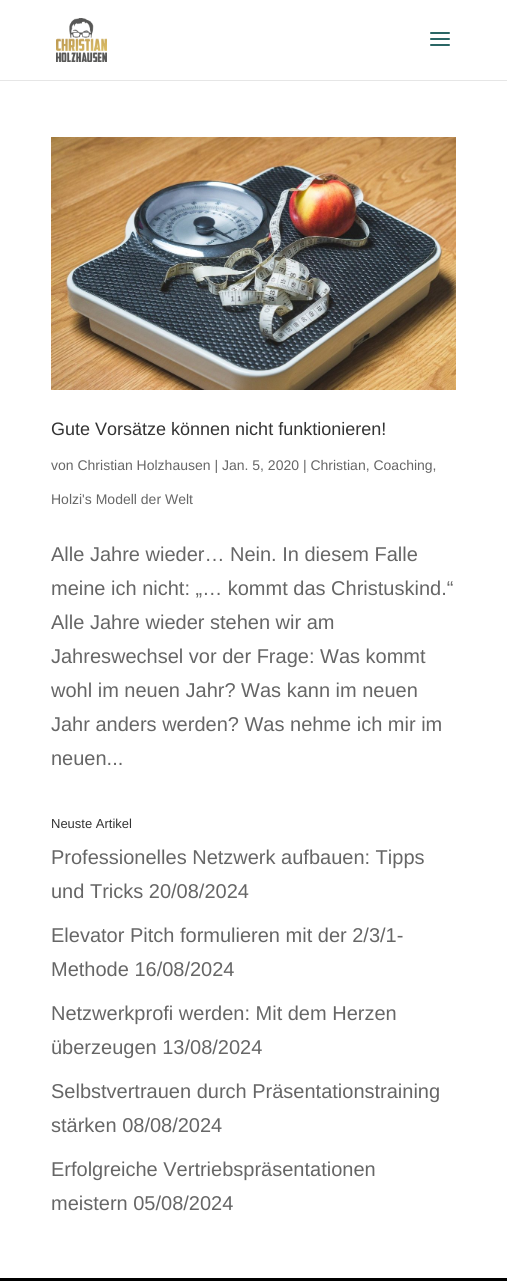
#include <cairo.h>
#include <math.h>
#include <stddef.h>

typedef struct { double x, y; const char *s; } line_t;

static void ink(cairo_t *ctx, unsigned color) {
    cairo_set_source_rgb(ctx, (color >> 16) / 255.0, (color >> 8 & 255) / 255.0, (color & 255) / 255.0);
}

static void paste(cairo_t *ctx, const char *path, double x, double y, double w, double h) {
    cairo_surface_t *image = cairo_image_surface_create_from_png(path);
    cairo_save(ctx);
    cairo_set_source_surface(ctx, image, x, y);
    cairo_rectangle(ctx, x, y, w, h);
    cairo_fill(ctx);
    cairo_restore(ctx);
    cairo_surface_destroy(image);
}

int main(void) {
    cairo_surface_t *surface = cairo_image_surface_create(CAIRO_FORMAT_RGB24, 507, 1281);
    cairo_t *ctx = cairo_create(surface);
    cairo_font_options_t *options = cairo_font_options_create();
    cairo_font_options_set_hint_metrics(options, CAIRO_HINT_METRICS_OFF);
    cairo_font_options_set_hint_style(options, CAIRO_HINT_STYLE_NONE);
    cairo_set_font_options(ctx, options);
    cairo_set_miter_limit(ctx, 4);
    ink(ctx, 0xFFFFFF);
    cairo_paint(ctx);
    ink(ctx, 0xE6E6E6);
    cairo_rectangle(ctx, 0, 80, 507, 1);
    cairo_fill(ctx);
    paste(ctx, "media/1.png", 56, 18, 51, 44);
    paste(ctx, "media/2.png", 430, 32, 20, 14);
    paste(ctx, "media/3.png", 51, 137, 405, 253);
    cairo_select_font_face(ctx, "Liberation Sans", CAIRO_FONT_SLANT_NORMAL, CAIRO_FONT_WEIGHT_NORMAL);
    cairo_set_font_size(ctx, 18);
    ink(ctx, 0x333333);
    cairo_move_to(ctx, 51, 435);
    cairo_show_text(ctx, "Gute Vorsätze können nicht funktionieren!");
    cairo_set_font_size(ctx, 14);
    ink(ctx, 0x666666);
    cairo_move_to(ctx, 51, 470);
    cairo_show_text(ctx, "von Christian Holzhausen | Jan. 5, 2020 | Christian, Coaching,");
    cairo_move_to(ctx, 51, 504);
    cairo_show_text(ctx, "Holzi's Modell der Welt");
    cairo_set_font_size(ctx, 20);
    {
        static const line_t items[] = {
            {51, 561, "Alle Jahre wieder… Nein. In diesem Falle"},
            {51, 595, "meine ich nicht: „… kommt das Christuskind.“"},
            {51, 629, "Alle Jahre wieder stehen wir am"},
            {51, 663, "Jahreswechsel vor der Frage: Was kommt"},
            {51, 697, "wohl im neuen Jahr? Was kann im neuen"},
            {51, 731, "Jahr anders werden? Was nehme ich mir im"},
            {51, 765, "neuen..."},
        };
        for (size_t i = 0; i < sizeof items / sizeof *items; i++) {
            cairo_move_to(ctx, items[i].x, items[i].y);
            cairo_show_text(ctx, items[i].s);
        }
    }
    cairo_set_font_size(ctx, 13);
    ink(ctx, 0x333333);
    cairo_move_to(ctx, 51, 828);
    cairo_show_text(ctx, "Neuste Artikel");
    cairo_set_font_size(ctx, 20);
    ink(ctx, 0x666666);
    {
        static const line_t items[] = {
            {51, 864, "Professionelles Netzwerk aufbauen: Tipps"},
            {51, 898, "und Tricks 20/08/2024"},
            {51, 942, "Elevator Pitch formulieren mit der 2/3/1-"},
            {51, 976, "Methode 16/08/2024"},
            {51, 1020, "Netzwerkprofi werden: Mit dem Herzen"},
            {51, 1054, "überzeugen 13/08/2024"},
            {51, 1098, "Selbstvertrauen durch Präsentationstraining"},
            {51, 1132, "stärken 08/08/2024"},
            {51, 1176, "Erfolgreiche Vertriebspräsentationen"},
            {51, 1210, "meistern 05/08/2024"},
        };
        for (size_t i = 0; i < sizeof items / sizeof *items; i++) {
            cairo_move_to(ctx, items[i].x, items[i].y);
            cairo_show_text(ctx, items[i].s);
        }
    }
    ink(ctx, 0x000000);
    cairo_rectangle(ctx, 0, 1278, 507, 3);
    cairo_fill(ctx);
    cairo_surface_write_to_png(surface, "image.png");
    cairo_font_options_destroy(options);
    cairo_destroy(ctx);
    cairo_surface_destroy(surface);
    return 0;
}
